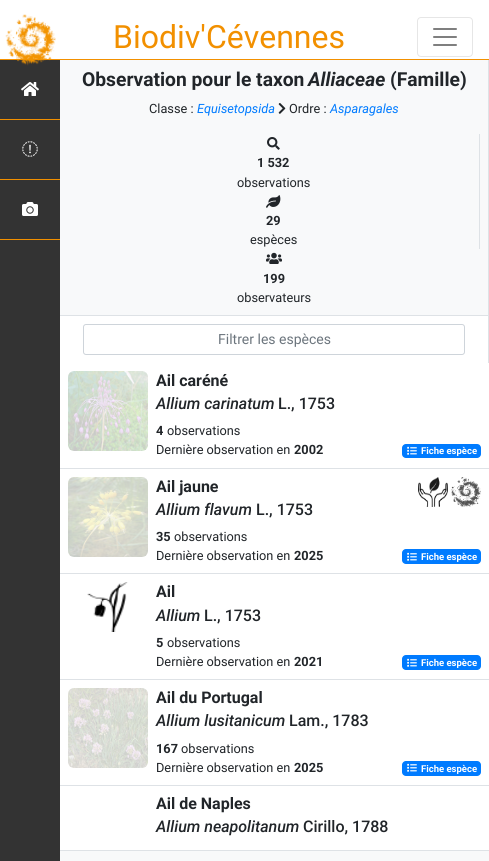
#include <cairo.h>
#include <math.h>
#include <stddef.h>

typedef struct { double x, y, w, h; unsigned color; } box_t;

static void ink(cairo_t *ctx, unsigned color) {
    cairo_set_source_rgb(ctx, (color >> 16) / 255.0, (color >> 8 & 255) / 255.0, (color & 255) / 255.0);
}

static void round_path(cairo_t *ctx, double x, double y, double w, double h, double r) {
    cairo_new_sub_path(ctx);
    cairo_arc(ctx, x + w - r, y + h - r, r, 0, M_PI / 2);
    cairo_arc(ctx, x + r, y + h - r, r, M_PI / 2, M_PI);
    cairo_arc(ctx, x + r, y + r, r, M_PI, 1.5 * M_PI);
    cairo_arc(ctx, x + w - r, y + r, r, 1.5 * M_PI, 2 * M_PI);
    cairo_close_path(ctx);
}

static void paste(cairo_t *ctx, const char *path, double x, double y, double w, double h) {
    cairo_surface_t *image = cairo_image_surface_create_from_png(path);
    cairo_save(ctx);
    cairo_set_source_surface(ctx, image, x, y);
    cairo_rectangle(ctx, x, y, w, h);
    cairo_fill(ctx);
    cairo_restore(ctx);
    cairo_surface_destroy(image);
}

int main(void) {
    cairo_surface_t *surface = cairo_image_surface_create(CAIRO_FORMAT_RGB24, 489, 861);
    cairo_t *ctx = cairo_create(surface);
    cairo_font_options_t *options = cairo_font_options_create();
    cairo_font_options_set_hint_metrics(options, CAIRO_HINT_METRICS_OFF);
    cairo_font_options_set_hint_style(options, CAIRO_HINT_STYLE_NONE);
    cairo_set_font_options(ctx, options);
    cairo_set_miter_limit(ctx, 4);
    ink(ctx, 0xDEE2E6);
    cairo_paint(ctx);
    {
        static const box_t items[] = {
            {0, 0, 489, 59, 0xFFFFFF},
            {0, 59, 489, 1, 0xF29000},
            {0, 60, 60, 801, 0x333333},
        };
        for (size_t i = 0; i < sizeof items / sizeof *items; i++) {
            ink(ctx, items[i].color);
            cairo_rectangle(ctx, items[i].x, items[i].y, items[i].w, items[i].h);
            cairo_fill(ctx);
        }
    }
    paste(ctx, "media/1.png", 5, 14, 51, 52);
    cairo_select_font_face(ctx, "Roboto", CAIRO_FONT_SLANT_NORMAL, CAIRO_FONT_WEIGHT_NORMAL);
    cairo_set_font_size(ctx, 32);
    ink(ctx, 0xF29000);
    cairo_move_to(ctx, 113, 48);
    cairo_show_text(ctx, "Biodiv'Cévennes");
    round_path(ctx, 417.5, 17.5, 55, 39, 3.5);
    ink(ctx, 0xE6E6E6);
    cairo_set_line_width(ctx, 1);
    cairo_stroke(ctx);
    paste(ctx, "media/2.png", 433, 28, 24, 18);
    ink(ctx, 0xF29000);
    cairo_rectangle(ctx, 0, 119, 60, 1);
    cairo_fill(ctx);
    paste(ctx, "media/3.png", 21, 82, 18, 14);
    cairo_rectangle(ctx, 0, 179, 60, 1);
    cairo_fill(ctx);
    paste(ctx, "media/4.png", 22, 141, 16, 16);
    cairo_rectangle(ctx, 0, 239, 60, 1);
    cairo_fill(ctx);
    paste(ctx, "media/5.png", 22, 202, 16, 14);
    ink(ctx, 0xF8F9FA);
    cairo_rectangle(ctx, 60, 60, 428, 255);
    cairo_fill(ctx);
    cairo_select_font_face(ctx, "Roboto", CAIRO_FONT_SLANT_NORMAL, CAIRO_FONT_WEIGHT_BOLD);
    cairo_set_font_size(ctx, 19.25);
    ink(ctx, 0x212529);
    cairo_move_to(ctx, 82, 86);
    cairo_show_text(ctx, "Observation pour le taxon");
    cairo_select_font_face(ctx, "Roboto", CAIRO_FONT_SLANT_ITALIC, CAIRO_FONT_WEIGHT_BOLD);
    cairo_move_to(ctx, 308, 86);
    cairo_show_text(ctx, "Alliaceae");
    cairo_select_font_face(ctx, "Roboto", CAIRO_FONT_SLANT_NORMAL, CAIRO_FONT_WEIGHT_BOLD);
    cairo_move_to(ctx, 390, 86);
    cairo_show_text(ctx, "(Famille)");
    cairo_select_font_face(ctx, "Roboto", CAIRO_FONT_SLANT_NORMAL, CAIRO_FONT_WEIGHT_NORMAL);
    cairo_set_font_size(ctx, 12.75);
    cairo_move_to(ctx, 149, 113);
    cairo_show_text(ctx, "Classe :");
    cairo_select_font_face(ctx, "Roboto", CAIRO_FONT_SLANT_ITALIC, CAIRO_FONT_WEIGHT_NORMAL);
    ink(ctx, 0x007BFF);
    cairo_move_to(ctx, 197, 113);
    cairo_show_text(ctx, "Equisetopsida");
    paste(ctx, "media/6.png", 278, 103, 8, 11);
    cairo_select_font_face(ctx, "Roboto", CAIRO_FONT_SLANT_NORMAL, CAIRO_FONT_WEIGHT_NORMAL);
    ink(ctx, 0x212529);
    cairo_move_to(ctx, 289, 113);
    cairo_show_text(ctx, "Ordre :");
    cairo_select_font_face(ctx, "Roboto", CAIRO_FONT_SLANT_ITALIC, CAIRO_FONT_WEIGHT_NORMAL);
    ink(ctx, 0x007BFF);
    cairo_move_to(ctx, 330, 113);
    cairo_show_text(ctx, "Asparagales");
    ink(ctx, 0xDEE2E6);
    cairo_rectangle(ctx, 479, 134, 1, 115);
    cairo_fill(ctx);
    paste(ctx, "media/7.png", 267, 137, 13, 13);
    cairo_select_font_face(ctx, "Roboto", CAIRO_FONT_SLANT_NORMAL, CAIRO_FONT_WEIGHT_BOLD);
    ink(ctx, 0x212529);
    cairo_move_to(ctx, 257, 167);
    cairo_show_text(ctx, "1 532");
    cairo_select_font_face(ctx, "Roboto", CAIRO_FONT_SLANT_NORMAL, CAIRO_FONT_WEIGHT_NORMAL);
    cairo_move_to(ctx, 237, 187);
    cairo_show_text(ctx, "observations");
    paste(ctx, "media/8.png", 266, 195, 15, 13);
    cairo_select_font_face(ctx, "Roboto", CAIRO_FONT_SLANT_NORMAL, CAIRO_FONT_WEIGHT_BOLD);
    cairo_move_to(ctx, 266, 225);
    cairo_show_text(ctx, "29");
    cairo_select_font_face(ctx, "Roboto", CAIRO_FONT_SLANT_NORMAL, CAIRO_FONT_WEIGHT_NORMAL);
    cairo_move_to(ctx, 250, 244);
    cairo_show_text(ctx, "espèces");
    paste(ctx, "media/9.png", 266, 252, 16, 12);
    cairo_select_font_face(ctx, "Roboto", CAIRO_FONT_SLANT_NORMAL, CAIRO_FONT_WEIGHT_BOLD);
    cairo_move_to(ctx, 263, 283);
    cairo_show_text(ctx, "199");
    cairo_select_font_face(ctx, "Roboto", CAIRO_FONT_SLANT_NORMAL, CAIRO_FONT_WEIGHT_NORMAL);
    cairo_move_to(ctx, 237, 302);
    cairo_show_text(ctx, "observateurs");
    ink(ctx, 0xFFFFFF);
    cairo_rectangle(ctx, 60, 316, 428, 47);
    cairo_fill(ctx);
    round_path(ctx, 83.5, 324.5, 381, 30, 2.5);
    ink(ctx, 0xCED4DA);
    cairo_stroke(ctx);
    cairo_set_font_size(ctx, 14);
    ink(ctx, 0x6C757D);
    cairo_move_to(ctx, 218, 344);
    cairo_show_text(ctx, "Filtrer les espèces");
    ink(ctx, 0xFFFFFF);
    cairo_rectangle(ctx, 60, 363, 429, 487);
    cairo_fill(ctx);
    ink(ctx, 0xDEE2E6);
    cairo_rectangle(ctx, 60, 468, 429, 1);
    cairo_fill(ctx);
    paste(ctx, "media/10.png", 68, 371, 80, 80);
    cairo_select_font_face(ctx, "Roboto", CAIRO_FONT_SLANT_NORMAL, CAIRO_FONT_WEIGHT_BOLD);
    cairo_set_font_size(ctx, 16);
    ink(ctx, 0x212529);
    cairo_move_to(ctx, 156, 386);
    cairo_show_text(ctx, "Ail caréné");
    cairo_select_font_face(ctx, "Roboto Medium", CAIRO_FONT_SLANT_ITALIC, CAIRO_FONT_WEIGHT_NORMAL);
    cairo_move_to(ctx, 156, 409);
    cairo_show_text(ctx, "Allium carinatum");
    cairo_select_font_face(ctx, "Roboto Medium", CAIRO_FONT_SLANT_NORMAL, CAIRO_FONT_WEIGHT_NORMAL);
    cairo_move_to(ctx, 278, 409);
    cairo_show_text(ctx, "L., 1753");
    cairo_select_font_face(ctx, "Roboto", CAIRO_FONT_SLANT_NORMAL, CAIRO_FONT_WEIGHT_BOLD);
    cairo_set_font_size(ctx, 12.75);
    cairo_move_to(ctx, 156, 435);
    cairo_show_text(ctx, "4");
    cairo_select_font_face(ctx, "Roboto", CAIRO_FONT_SLANT_NORMAL, CAIRO_FONT_WEIGHT_NORMAL);
    cairo_move_to(ctx, 167, 435);
    cairo_show_text(ctx, "observations");
    cairo_move_to(ctx, 156, 454);
    cairo_show_text(ctx, "Dernière observation en");
    cairo_select_font_face(ctx, "Roboto", CAIRO_FONT_SLANT_NORMAL, CAIRO_FONT_WEIGHT_BOLD);
    cairo_move_to(ctx, 294, 454);
    cairo_show_text(ctx, "2002");
    ink(ctx, 0x007BFF);
    round_path(ctx, 402, 444, 79, 14, 4);
    cairo_fill(ctx);
    paste(ctx, "media/11.png", 407, 446, 10, 9);
    cairo_set_font_size(ctx, 9.5);
    ink(ctx, 0xFFFFFF);
    cairo_move_to(ctx, 421, 454);
    cairo_show_text(ctx, "Fiche espèce");
    ink(ctx, 0xDEE2E6);
    cairo_rectangle(ctx, 60, 573, 429, 1);
    cairo_fill(ctx);
    paste(ctx, "media/12.png", 68, 477, 80, 80);
    cairo_set_font_size(ctx, 16);
    ink(ctx, 0x212529);
    cairo_move_to(ctx, 156, 492);
    cairo_show_text(ctx, "Ail jaune");
    paste(ctx, "media/13.png", 418, 477, 30, 30);
    paste(ctx, "media/14.png", 451, 477, 30, 30);
    cairo_select_font_face(ctx, "Roboto Medium", CAIRO_FONT_SLANT_ITALIC, CAIRO_FONT_WEIGHT_NORMAL);
    cairo_move_to(ctx, 156, 515);
    cairo_show_text(ctx, "Allium flavum");
    cairo_select_font_face(ctx, "Roboto Medium", CAIRO_FONT_SLANT_NORMAL, CAIRO_FONT_WEIGHT_NORMAL);
    cairo_move_to(ctx, 256, 515);
    cairo_show_text(ctx, "L., 1753");
    cairo_select_font_face(ctx, "Roboto", CAIRO_FONT_SLANT_NORMAL, CAIRO_FONT_WEIGHT_BOLD);
    cairo_set_font_size(ctx, 12.75);
    cairo_move_to(ctx, 156, 541);
    cairo_show_text(ctx, "35");
    cairo_select_font_face(ctx, "Roboto", CAIRO_FONT_SLANT_NORMAL, CAIRO_FONT_WEIGHT_NORMAL);
    cairo_move_to(ctx, 174, 541);
    cairo_show_text(ctx, "observations");
    cairo_move_to(ctx, 156, 560);
    cairo_show_text(ctx, "Dernière observation en");
    cairo_select_font_face(ctx, "Roboto", CAIRO_FONT_SLANT_NORMAL, CAIRO_FONT_WEIGHT_BOLD);
    cairo_move_to(ctx, 294, 560);
    cairo_show_text(ctx, "2025");
    ink(ctx, 0x007BFF);
    round_path(ctx, 402, 549, 79, 15, 4);
    cairo_fill(ctx);
    paste(ctx, "media/11.png", 407, 552, 10, 9);
    cairo_set_font_size(ctx, 9.5);
    ink(ctx, 0xFFFFFF);
    cairo_move_to(ctx, 421, 560);
    cairo_show_text(ctx, "Fiche espèce");
    ink(ctx, 0xDEE2E6);
    cairo_rectangle(ctx, 60, 679, 429, 1);
    cairo_fill(ctx);
    paste(ctx, "media/15.png", 87, 582, 41, 50);
    cairo_set_font_size(ctx, 16);
    ink(ctx, 0x212529);
    cairo_move_to(ctx, 156, 597);
    cairo_show_text(ctx, "Ail");
    cairo_select_font_face(ctx, "Roboto Medium", CAIRO_FONT_SLANT_ITALIC, CAIRO_FONT_WEIGHT_NORMAL);
    cairo_move_to(ctx, 156, 621);
    cairo_show_text(ctx, "Allium");
    cairo_select_font_face(ctx, "Roboto Medium", CAIRO_FONT_SLANT_NORMAL, CAIRO_FONT_WEIGHT_NORMAL);
    cairo_move_to(ctx, 204, 621);
    cairo_show_text(ctx, "L., 1753");
    cairo_select_font_face(ctx, "Roboto", CAIRO_FONT_SLANT_NORMAL, CAIRO_FONT_WEIGHT_BOLD);
    cairo_set_font_size(ctx, 12.75);
    cairo_move_to(ctx, 156, 647);
    cairo_show_text(ctx, "5");
    cairo_select_font_face(ctx, "Roboto", CAIRO_FONT_SLANT_NORMAL, CAIRO_FONT_WEIGHT_NORMAL);
    cairo_move_to(ctx, 167, 647);
    cairo_show_text(ctx, "observations");
    cairo_move_to(ctx, 156, 666);
    cairo_show_text(ctx, "Dernière observation en");
    cairo_select_font_face(ctx, "Roboto", CAIRO_FONT_SLANT_NORMAL, CAIRO_FONT_WEIGHT_BOLD);
    cairo_move_to(ctx, 294, 666);
    cairo_show_text(ctx, "2021");
    ink(ctx, 0x007BFF);
    round_path(ctx, 402, 655, 79, 15, 4);
    cairo_fill(ctx);
    paste(ctx, "media/11.png", 407, 658, 10, 9);
    cairo_set_font_size(ctx, 9.5);
    ink(ctx, 0xFFFFFF);
    cairo_move_to(ctx, 421, 666);
    cairo_show_text(ctx, "Fiche espèce");
    ink(ctx, 0xDEE2E6);
    cairo_rectangle(ctx, 60, 785, 429, 1);
    cairo_fill(ctx);
    paste(ctx, "media/16.png", 68, 688, 80, 80);
    cairo_set_font_size(ctx, 16);
    ink(ctx, 0x212529);
    cairo_move_to(ctx, 156, 703);
    cairo_show_text(ctx, "Ail du Portugal");
    cairo_select_font_face(ctx, "Roboto Medium", CAIRO_FONT_SLANT_ITALIC, CAIRO_FONT_WEIGHT_NORMAL);
    cairo_move_to(ctx, 156, 726);
    cairo_show_text(ctx, "Allium lusitanicum");
    cairo_select_font_face(ctx, "Roboto Medium", CAIRO_FONT_SLANT_NORMAL, CAIRO_FONT_WEIGHT_NORMAL);
    cairo_move_to(ctx, 289, 726);
    cairo_show_text(ctx, "Lam., 1783");
    cairo_select_font_face(ctx, "Roboto", CAIRO_FONT_SLANT_NORMAL, CAIRO_FONT_WEIGHT_BOLD);
    cairo_set_font_size(ctx, 12.75);
    cairo_move_to(ctx, 156, 753);
    cairo_show_text(ctx, "167");
    cairo_select_font_face(ctx, "Roboto", CAIRO_FONT_SLANT_NORMAL, CAIRO_FONT_WEIGHT_NORMAL);
    cairo_move_to(ctx, 181, 753);
    cairo_show_text(ctx, "observations");
    cairo_move_to(ctx, 156, 772);
    cairo_show_text(ctx, "Dernière observation en");
    cairo_select_font_face(ctx, "Roboto", CAIRO_FONT_SLANT_NORMAL, CAIRO_FONT_WEIGHT_BOLD);
    cairo_move_to(ctx, 294, 772);
    cairo_show_text(ctx, "2025");
    ink(ctx, 0x007BFF);
    round_path(ctx, 402, 761, 79, 15, 4);
    cairo_fill(ctx);
    paste(ctx, "media/11.png", 407, 763, 10, 9);
    cairo_set_font_size(ctx, 9.5);
    ink(ctx, 0xFFFFFF);
    cairo_move_to(ctx, 421, 772);
    cairo_show_text(ctx, "Fiche espèce");
    cairo_set_font_size(ctx, 16);
    ink(ctx, 0x212529);
    cairo_move_to(ctx, 156, 809);
    cairo_show_text(ctx, "Ail de Naples");
    cairo_select_font_face(ctx, "Roboto Medium", CAIRO_FONT_SLANT_ITALIC, CAIRO_FONT_WEIGHT_NORMAL);
    cairo_move_to(ctx, 156, 832);
    cairo_show_text(ctx, "Allium neapolitanum");
    cairo_select_font_face(ctx, "Roboto Medium", CAIRO_FONT_SLANT_NORMAL, CAIRO_FONT_WEIGHT_NORMAL);
    cairo_move_to(ctx, 303, 832);
    cairo_show_text(ctx, "Cirillo, 1788");
    ink(ctx, 0xF8F9FA);
    cairo_rectangle(ctx, 60, 851, 429, 10);
    cairo_fill(ctx);
    cairo_surface_write_to_png(surface, "image.png");
    cairo_font_options_destroy(options);
    cairo_destroy(ctx);
    cairo_surface_destroy(surface);
    return 0;
}
